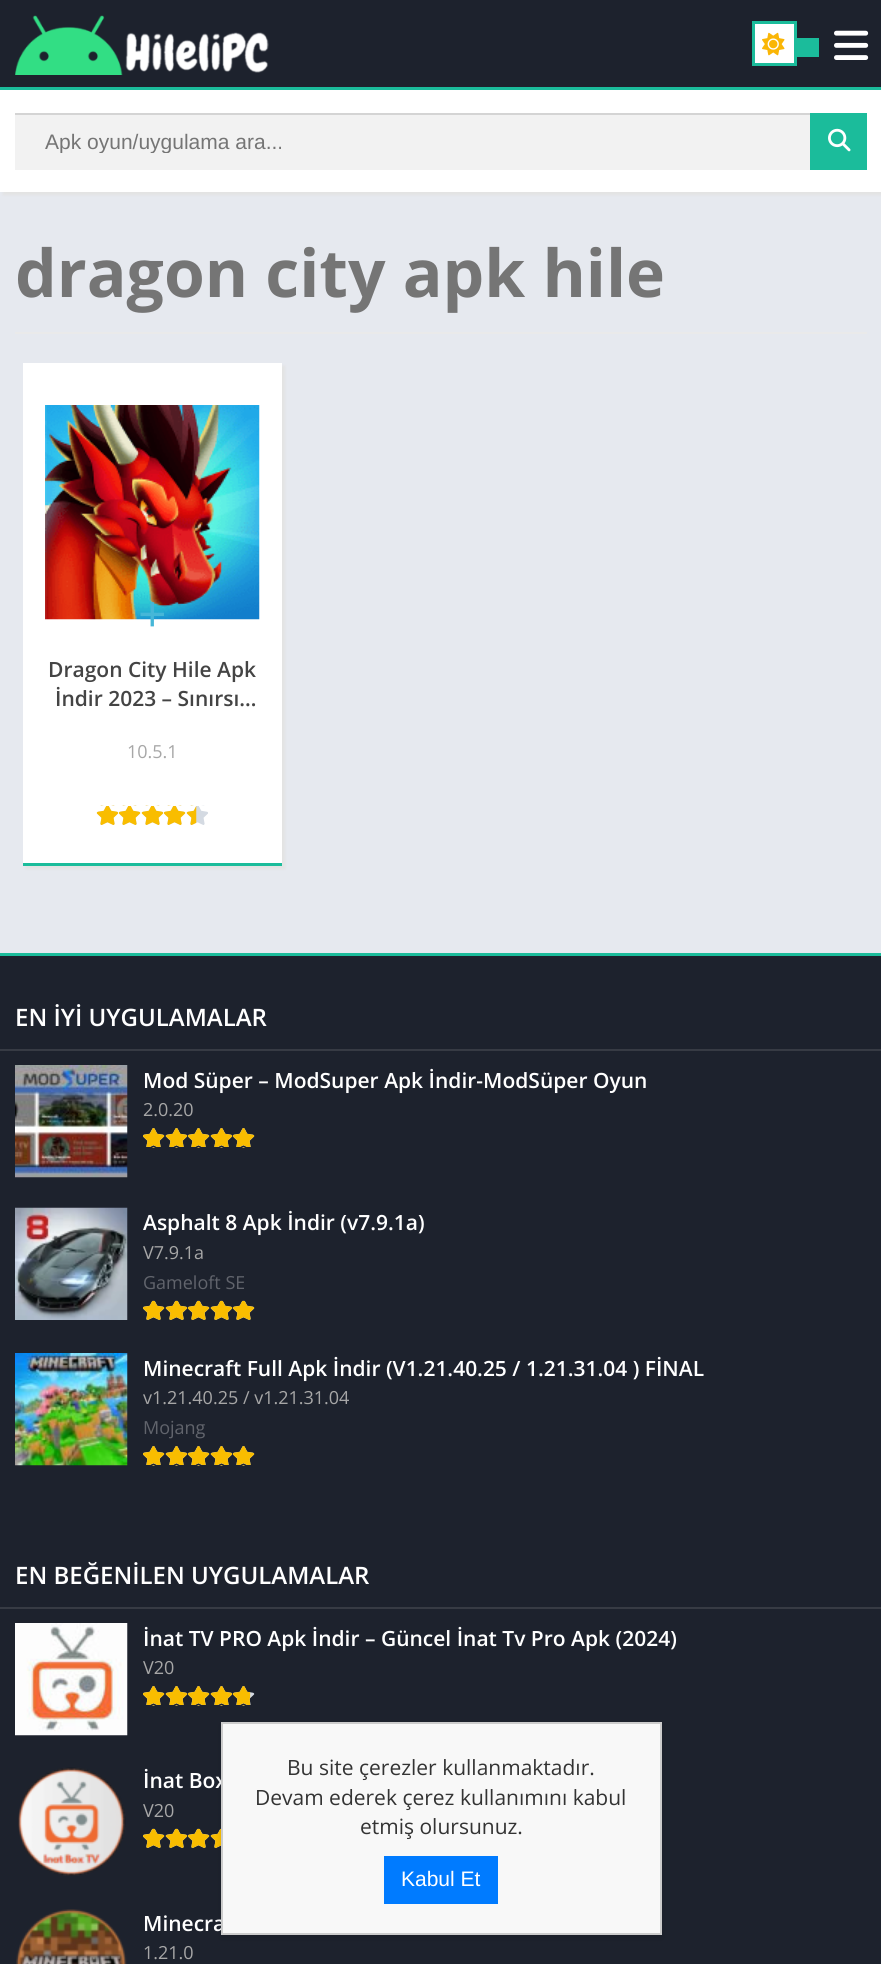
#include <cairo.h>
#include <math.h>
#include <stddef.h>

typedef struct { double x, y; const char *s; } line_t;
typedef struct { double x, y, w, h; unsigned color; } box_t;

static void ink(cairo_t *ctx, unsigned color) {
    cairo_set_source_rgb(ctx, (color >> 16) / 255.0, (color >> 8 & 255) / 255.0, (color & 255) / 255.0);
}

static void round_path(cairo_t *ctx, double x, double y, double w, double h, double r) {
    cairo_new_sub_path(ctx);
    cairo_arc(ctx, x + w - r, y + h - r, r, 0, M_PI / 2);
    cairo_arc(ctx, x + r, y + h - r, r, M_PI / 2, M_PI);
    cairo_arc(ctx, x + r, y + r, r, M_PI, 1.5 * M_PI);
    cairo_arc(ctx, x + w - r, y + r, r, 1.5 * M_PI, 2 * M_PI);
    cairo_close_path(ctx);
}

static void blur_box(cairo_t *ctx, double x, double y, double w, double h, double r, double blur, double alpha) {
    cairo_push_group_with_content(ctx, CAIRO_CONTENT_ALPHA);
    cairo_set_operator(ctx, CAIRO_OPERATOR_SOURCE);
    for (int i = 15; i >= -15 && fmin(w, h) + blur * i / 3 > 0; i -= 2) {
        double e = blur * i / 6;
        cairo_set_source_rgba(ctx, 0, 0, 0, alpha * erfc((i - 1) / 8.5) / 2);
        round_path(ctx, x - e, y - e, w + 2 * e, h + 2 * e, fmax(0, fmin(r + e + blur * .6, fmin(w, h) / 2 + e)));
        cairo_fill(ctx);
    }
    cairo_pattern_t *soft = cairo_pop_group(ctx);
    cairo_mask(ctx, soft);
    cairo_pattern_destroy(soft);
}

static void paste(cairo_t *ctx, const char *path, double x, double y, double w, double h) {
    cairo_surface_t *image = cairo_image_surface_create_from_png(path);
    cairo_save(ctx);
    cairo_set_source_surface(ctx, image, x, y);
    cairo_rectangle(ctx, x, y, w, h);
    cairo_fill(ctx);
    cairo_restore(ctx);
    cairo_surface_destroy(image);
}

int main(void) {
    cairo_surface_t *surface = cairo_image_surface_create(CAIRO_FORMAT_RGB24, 881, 1964);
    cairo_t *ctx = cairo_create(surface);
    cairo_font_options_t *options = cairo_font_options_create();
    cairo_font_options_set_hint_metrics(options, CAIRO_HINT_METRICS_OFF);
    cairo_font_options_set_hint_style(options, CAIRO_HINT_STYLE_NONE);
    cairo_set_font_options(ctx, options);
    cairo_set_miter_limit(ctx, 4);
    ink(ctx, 0xE6E9EF);
    cairo_paint(ctx);
    ink(ctx, 0xE3E3E3);
    blur_box(ctx, 3, 3, 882, 192, 0, 1.5, 1);
    ink(ctx, 0x1D222D);
    cairo_rectangle(ctx, 0, 0, 881, 87);
    cairo_fill(ctx);
    ink(ctx, 0x1BBC9B);
    cairo_rectangle(ctx, 0, 87, 881, 3);
    cairo_fill(ctx);
    paste(ctx, "media/1.png", 15, 15, 254, 60);
    ink(ctx, 0xFFFFFF);
    cairo_rectangle(ctx, 753.5, 22.5, 42, 42);
    cairo_fill_preserve(ctx);
    ink(ctx, 0x1BBC9B);
    cairo_set_line_width(ctx, 3);
    cairo_stroke(ctx);
    paste(ctx, "media/2.png", 762, 32, 23, 24);
    cairo_rectangle(ctx, 797, 38, 22, 19);
    cairo_fill(ctx);
    paste(ctx, "media/3.png", 834, 30, 35, 30);
    {
        static const box_t items[] = {
            {0, 90, 881, 102, 0xFFFFFF},
            {15, 115, 795, 55, 0xF2F2F2},
            {15, 113, 795, 2, 0xD4D4D4},
        };
        for (size_t i = 0; i < sizeof items / sizeof *items; i++) {
            ink(ctx, items[i].color);
            cairo_rectangle(ctx, items[i].x, items[i].y, items[i].w, items[i].h);
            cairo_fill(ctx);
        }
    }
    cairo_save(ctx);
    cairo_rectangle(ctx, 45, 129, 657, 24);
    cairo_clip(ctx);
    cairo_select_font_face(ctx, "Liberation Sans", CAIRO_FONT_SLANT_NORMAL, CAIRO_FONT_WEIGHT_NORMAL);
    cairo_set_font_size(ctx, 21);
    ink(ctx, 0x757575);
    cairo_move_to(ctx, 45, 149);
    cairo_show_text(ctx, "Apk oyun/uygulama ara...");
    cairo_restore(ctx);
    ink(ctx, 0x1BBC9B);
    cairo_rectangle(ctx, 810, 113, 57, 57);
    cairo_fill(ctx);
    paste(ctx, "media/4.png", 828, 128, 23, 24);
    ink(ctx, 0xEAEAEA);
    cairo_rectangle(ctx, 15, 332, 852, 2);
    cairo_fill(ctx);
    cairo_select_font_face(ctx, "Open Sans", CAIRO_FONT_SLANT_NORMAL, CAIRO_FONT_WEIGHT_BOLD);
    cairo_set_font_size(ctx, 66);
    ink(ctx, 0x757575);
    cairo_move_to(ctx, 15, 297);
    cairo_show_text(ctx, "dragon city apk hile");
    ink(ctx, 0xE3E3E3);
    blur_box(ctx, 26, 366, 259, 503, 0, 1.5, 1);
    ink(ctx, 0xFFFFFF);
    cairo_rectangle(ctx, 23, 363, 259, 500);
    cairo_fill(ctx);
    ink(ctx, 0x1BBC9B);
    cairo_rectangle(ctx, 23, 863, 259, 3);
    cairo_fill(ctx);
    paste(ctx, "media/5.png", 45, 405, 215, 215);
    cairo_select_font_face(ctx, "Open Sans", CAIRO_FONT_SLANT_NORMAL, CAIRO_FONT_WEIGHT_NORMAL);
    cairo_set_font_size(ctx, 50);
    ink(ctx, 0x46B7D8);
    cairo_move_to(ctx, 138, 632);
    cairo_show_text(ctx, "+");
    cairo_select_font_face(ctx, "Open Sans SemiBold", CAIRO_FONT_SLANT_NORMAL, CAIRO_FONT_WEIGHT_NORMAL);
    cairo_set_font_size(ctx, 21);
    ink(ctx, 0x444444);
    cairo_move_to(ctx, 48, 677);
    cairo_show_text(ctx, "Dragon City Hile Apk");
    cairo_move_to(ctx, 55, 706);
    cairo_show_text(ctx, "İndir 2023 – Sınırsı…");
    cairo_select_font_face(ctx, "Open Sans", CAIRO_FONT_SLANT_NORMAL, CAIRO_FONT_WEIGHT_NORMAL);
    cairo_set_font_size(ctx, 18);
    ink(ctx, 0xA7A7A7);
    cairo_move_to(ctx, 127, 758);
    cairo_show_text(ctx, "10.5.1");
    paste(ctx, "media/6.png", 97, 805, 111, 20);
    paste(ctx, "media/7.png", 96, 805, 101, 20);
    {
        static const box_t items[] = {
            {0, 956, 881, 1008, 0x1D222D},
            {0, 953, 881, 3, 0x1BBC9B},
            {0, 1049, 881, 2, 0x373B44},
        };
        for (size_t i = 0; i < sizeof items / sizeof *items; i++) {
            ink(ctx, items[i].color);
            cairo_rectangle(ctx, items[i].x, items[i].y, items[i].w, items[i].h);
            cairo_fill(ctx);
        }
    }
    cairo_select_font_face(ctx, "Open Sans SemiBold", CAIRO_FONT_SLANT_NORMAL, CAIRO_FONT_WEIGHT_NORMAL);
    cairo_set_font_size(ctx, 24);
    ink(ctx, 0xFFFFFF);
    cairo_move_to(ctx, 15, 1026);
    cairo_show_text(ctx, "EN İYİ UYGULAMALAR");
    paste(ctx, "media/8.png", 15, 1065, 113, 113);
    cairo_set_font_size(ctx, 21);
    cairo_move_to(ctx, 143, 1088);
    cairo_show_text(ctx, "Mod Süper – ModSuper Apk İndir-ModSüper Oyun");
    cairo_select_font_face(ctx, "Open Sans", CAIRO_FONT_SLANT_NORMAL, CAIRO_FONT_WEIGHT_NORMAL);
    cairo_set_font_size(ctx, 18);
    ink(ctx, 0xA7A7A7);
    cairo_move_to(ctx, 143, 1116);
    cairo_show_text(ctx, "2.0.20");
    paste(ctx, "media/9.png", 143, 1128, 112, 20);
    paste(ctx, "media/10.png", 143, 1128, 112, 20);
    paste(ctx, "media/11.png", 15, 1207, 113, 113);
    cairo_select_font_face(ctx, "Open Sans SemiBold", CAIRO_FONT_SLANT_NORMAL, CAIRO_FONT_WEIGHT_NORMAL);
    cairo_set_font_size(ctx, 21);
    ink(ctx, 0xFFFFFF);
    cairo_move_to(ctx, 143, 1230);
    cairo_show_text(ctx, "Asphalt 8 Apk İndir (v7.9.1a)");
    cairo_select_font_face(ctx, "Open Sans", CAIRO_FONT_SLANT_NORMAL, CAIRO_FONT_WEIGHT_NORMAL);
    cairo_set_font_size(ctx, 18);
    ink(ctx, 0xA7A7A7);
    cairo_move_to(ctx, 143, 1259);
    cairo_show_text(ctx, "V7.9.1a");
    ink(ctx, 0x61646C);
    cairo_move_to(ctx, 143, 1289);
    cairo_show_text(ctx, "Gameloft SE");
    paste(ctx, "media/12.png", 143, 1300, 112, 20);
    paste(ctx, "media/13.png", 143, 1300, 112, 20);
    paste(ctx, "media/14.png", 15, 1353, 113, 113);
    cairo_select_font_face(ctx, "Open Sans SemiBold", CAIRO_FONT_SLANT_NORMAL, CAIRO_FONT_WEIGHT_NORMAL);
    cairo_set_font_size(ctx, 21);
    ink(ctx, 0xFFFFFF);
    cairo_move_to(ctx, 143, 1376);
    cairo_show_text(ctx, "Minecraft Full Apk İndir (V1.21.40.25 / 1.21.31.04 ) FİNAL");
    cairo_select_font_face(ctx, "Open Sans", CAIRO_FONT_SLANT_NORMAL, CAIRO_FONT_WEIGHT_NORMAL);
    cairo_set_font_size(ctx, 18);
    ink(ctx, 0xA7A7A7);
    cairo_move_to(ctx, 143, 1404);
    cairo_show_text(ctx, "v1.21.40.25 / v1.21.31.04");
    ink(ctx, 0x61646C);
    cairo_move_to(ctx, 143, 1434);
    cairo_show_text(ctx, "Mojang");
    paste(ctx, "media/9.png", 143, 1446, 112, 20);
    paste(ctx, "media/10.png", 143, 1446, 112, 20);
    ink(ctx, 0x373B44);
    cairo_rectangle(ctx, 0, 1607, 881, 2);
    cairo_fill(ctx);
    cairo_select_font_face(ctx, "Open Sans SemiBold", CAIRO_FONT_SLANT_NORMAL, CAIRO_FONT_WEIGHT_NORMAL);
    cairo_set_font_size(ctx, 24);
    ink(ctx, 0xFFFFFF);
    cairo_move_to(ctx, 15, 1584);
    cairo_show_text(ctx, "EN BEĞENİLEN UYGULAMALAR");
    paste(ctx, "media/15.png", 15, 1623, 113, 113);
    cairo_set_font_size(ctx, 21);
    cairo_move_to(ctx, 143, 1646);
    cairo_show_text(ctx, "İnat TV PRO Apk İndir – Güncel İnat Tv Pro Apk (2024)");
    cairo_select_font_face(ctx, "Open Sans", CAIRO_FONT_SLANT_NORMAL, CAIRO_FONT_WEIGHT_NORMAL);
    cairo_set_font_size(ctx, 18);
    ink(ctx, 0xA7A7A7);
    cairo_move_to(ctx, 143, 1674);
    cairo_show_text(ctx, "V20");
    paste(ctx, "media/9.png", 143, 1686, 112, 20);
    paste(ctx, "media/16.png", 143, 1686, 108, 20);
    paste(ctx, "media/17.png", 18, 1767, 108, 109);
    cairo_select_font_face(ctx, "Open Sans SemiBold", CAIRO_FONT_SLANT_NORMAL, CAIRO_FONT_WEIGHT_NORMAL);
    cairo_set_font_size(ctx, 21);
    ink(ctx, 0xFFFFFF);
    cairo_move_to(ctx, 143, 1788);
    cairo_show_text(ctx, "İnat Box");
    cairo_select_font_face(ctx, "Open Sans", CAIRO_FONT_SLANT_NORMAL, CAIRO_FONT_WEIGHT_NORMAL);
    cairo_set_font_size(ctx, 18);
    ink(ctx, 0xA7A7A7);
    cairo_move_to(ctx, 143, 1817);
    cairo_show_text(ctx, "V20");
    paste(ctx, "media/18.png", 143, 1828, 78, 20);
    paste(ctx, "media/19.png", 143, 1828, 78, 20);
    paste(ctx, "media/20.png", 16, 1909, 111, 55);
    cairo_select_font_face(ctx, "Open Sans SemiBold", CAIRO_FONT_SLANT_NORMAL, CAIRO_FONT_WEIGHT_NORMAL);
    cairo_set_font_size(ctx, 21);
    ink(ctx, 0xFFFFFF);
    cairo_move_to(ctx, 143, 1931);
    cairo_show_text(ctx, "Minecra");
    cairo_select_font_face(ctx, "Open Sans", CAIRO_FONT_SLANT_NORMAL, CAIRO_FONT_WEIGHT_NORMAL);
    cairo_set_font_size(ctx, 18);
    ink(ctx, 0xA7A7A7);
    cairo_move_to(ctx, 143, 1959);
    cairo_show_text(ctx, "1.21.0");
    ink(ctx, 0x000000);
    blur_box(ctx, 221, 1725, 441, 213, 0, 3, 0.1);
    ink(ctx, 0xF8F8F8);
    cairo_rectangle(ctx, 222, 1723, 439, 211);
    cairo_fill_preserve(ctx);
    ink(ctx, 0xCCCCCC);
    cairo_set_line_width(ctx, 2);
    cairo_stroke(ctx);
    cairo_set_font_size(ctx, 21);
    ink(ctx, 0x333333);
    {
        static const line_t items[] = {
            {287, 1775, "Bu site çerezler kullanmaktadır."},
            {255, 1805, "Devam ederek çerez kullanımını kabul"},
            {360, 1834, "etmiş olursunuz."},
        };
        for (size_t i = 0; i < sizeof items / sizeof *items; i++) {
            cairo_move_to(ctx, items[i].x, items[i].y);
            cairo_show_text(ctx, items[i].s);
        }
    }
    ink(ctx, 0x007BFF);
    cairo_rectangle(ctx, 384, 1856, 114, 48);
    cairo_fill(ctx);
    cairo_select_font_face(ctx, "Liberation Sans", CAIRO_FONT_SLANT_NORMAL, CAIRO_FONT_WEIGHT_NORMAL);
    ink(ctx, 0xFFFFFF);
    cairo_move_to(ctx, 401, 1886);
    cairo_show_text(ctx, "Kabul Et");
    cairo_surface_write_to_png(surface, "image.png");
    cairo_font_options_destroy(options);
    cairo_destroy(ctx);
    cairo_surface_destroy(surface);
    return 0;
}
